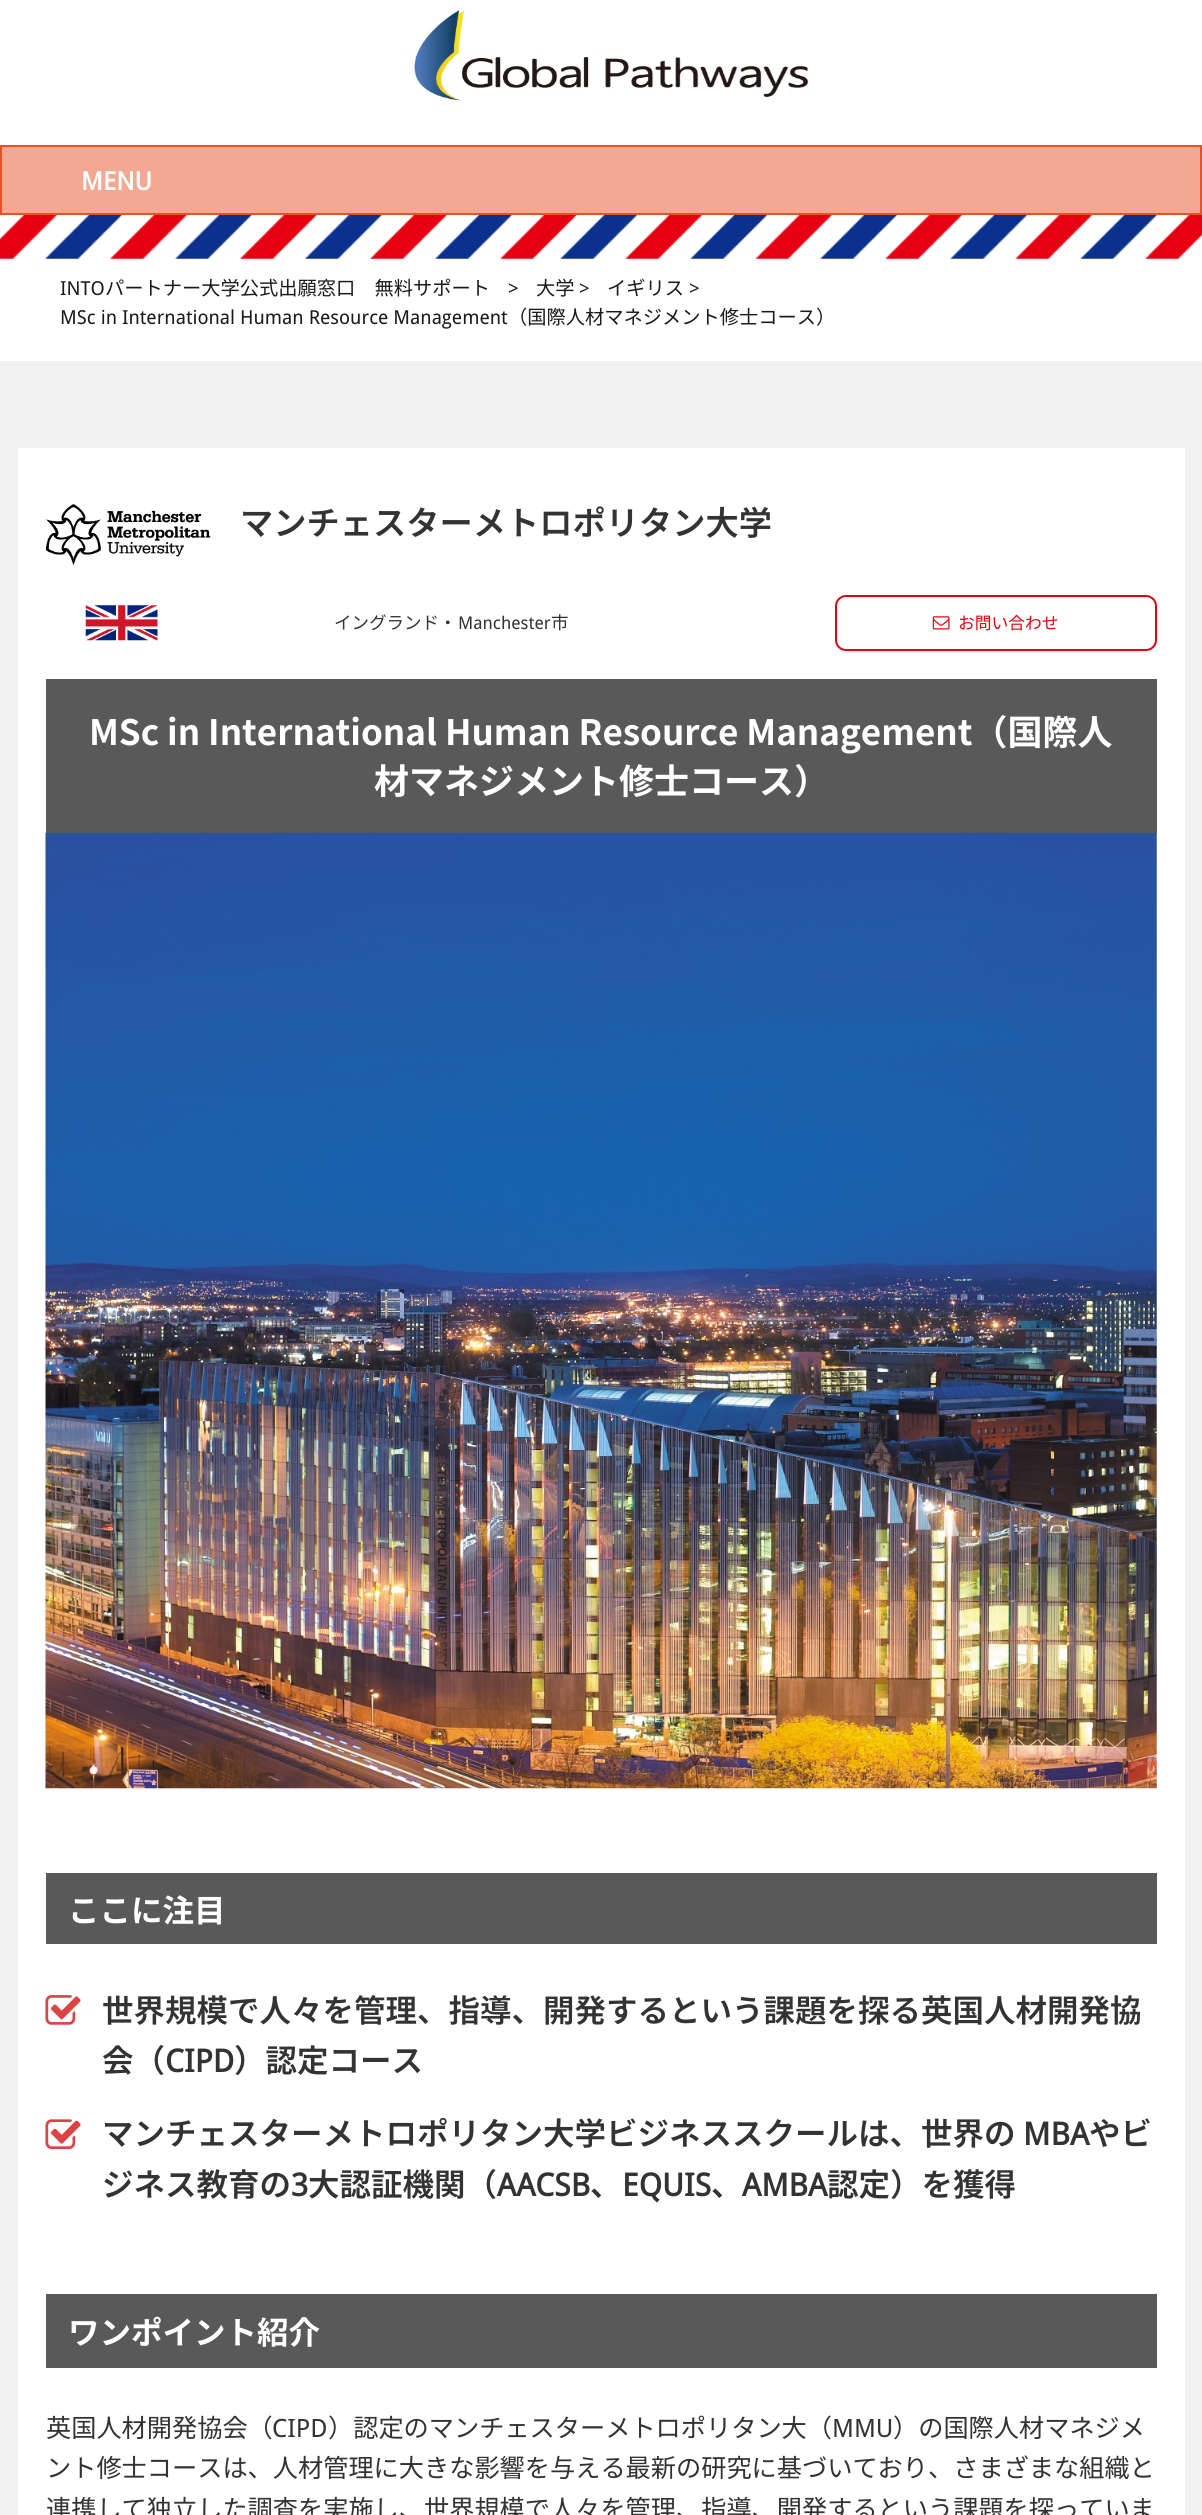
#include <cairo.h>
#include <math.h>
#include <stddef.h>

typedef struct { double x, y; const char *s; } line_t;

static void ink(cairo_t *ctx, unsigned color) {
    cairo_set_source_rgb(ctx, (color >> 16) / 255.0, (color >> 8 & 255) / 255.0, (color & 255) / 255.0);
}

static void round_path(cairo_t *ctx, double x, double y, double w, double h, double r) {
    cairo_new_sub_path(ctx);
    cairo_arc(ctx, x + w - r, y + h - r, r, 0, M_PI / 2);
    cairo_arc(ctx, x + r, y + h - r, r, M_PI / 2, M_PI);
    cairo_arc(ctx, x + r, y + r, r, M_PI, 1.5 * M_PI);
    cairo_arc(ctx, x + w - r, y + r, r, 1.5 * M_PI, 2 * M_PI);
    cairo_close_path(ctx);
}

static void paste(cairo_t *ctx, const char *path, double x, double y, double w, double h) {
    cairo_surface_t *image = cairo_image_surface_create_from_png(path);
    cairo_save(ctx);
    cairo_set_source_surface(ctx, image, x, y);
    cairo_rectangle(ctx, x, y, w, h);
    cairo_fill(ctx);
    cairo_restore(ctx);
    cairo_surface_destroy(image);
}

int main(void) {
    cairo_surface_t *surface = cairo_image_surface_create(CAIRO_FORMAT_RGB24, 1202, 2515);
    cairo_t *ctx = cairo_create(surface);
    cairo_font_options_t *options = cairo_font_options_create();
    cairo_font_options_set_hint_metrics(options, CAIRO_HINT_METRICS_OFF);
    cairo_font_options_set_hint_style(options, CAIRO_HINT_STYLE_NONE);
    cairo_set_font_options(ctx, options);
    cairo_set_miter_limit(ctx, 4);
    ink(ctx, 0xFFFFFF);
    cairo_paint(ctx);
    paste(ctx, "media/1.png", 414, 10, 395, 91);
    ink(ctx, 0xF3A893);
    cairo_rectangle(ctx, 1, 146, 1200, 68);
    cairo_fill_preserve(ctx);
    ink(ctx, 0xE65126);
    cairo_stroke(ctx);
    cairo_select_font_face(ctx, "Droid Sans", CAIRO_FONT_SLANT_NORMAL, CAIRO_FONT_WEIGHT_BOLD);
    cairo_set_font_size(ctx, 25.2);
    ink(ctx, 0xFFFFFF);
    cairo_move_to(ctx, 81, 190);
    cairo_show_text(ctx, "MENU");
    paste(ctx, "media/2.png", 0, 215, 1202, 44);
    cairo_select_font_face(ctx, "Droid Sans", CAIRO_FONT_SLANT_NORMAL, CAIRO_FONT_WEIGHT_NORMAL);
    cairo_set_font_size(ctx, 19.25);
    ink(ctx, 0x1A1A1A);
    cairo_move_to(ctx, 60, 295);
    cairo_show_text(ctx, "INTO");
    cairo_select_font_face(ctx, "Noto Sans JP", CAIRO_FONT_SLANT_NORMAL, CAIRO_FONT_WEIGHT_NORMAL);
    cairo_move_to(ctx, 105, 295);
    cairo_show_text(ctx, "パートナー大学公式出願窓口　無料サポート");
    cairo_select_font_face(ctx, "Droid Sans", CAIRO_FONT_SLANT_NORMAL, CAIRO_FONT_WEIGHT_NORMAL);
    cairo_move_to(ctx, 508, 295);
    cairo_show_text(ctx, ">");
    cairo_select_font_face(ctx, "Noto Sans JP", CAIRO_FONT_SLANT_NORMAL, CAIRO_FONT_WEIGHT_NORMAL);
    cairo_move_to(ctx, 536, 295);
    cairo_show_text(ctx, "大学");
    cairo_select_font_face(ctx, "Droid Sans", CAIRO_FONT_SLANT_NORMAL, CAIRO_FONT_WEIGHT_NORMAL);
    cairo_move_to(ctx, 579, 295);
    cairo_show_text(ctx, ">");
    cairo_select_font_face(ctx, "Noto Sans JP", CAIRO_FONT_SLANT_NORMAL, CAIRO_FONT_WEIGHT_NORMAL);
    cairo_move_to(ctx, 607, 295);
    cairo_show_text(ctx, "イギリス");
    cairo_select_font_face(ctx, "Droid Sans", CAIRO_FONT_SLANT_NORMAL, CAIRO_FONT_WEIGHT_NORMAL);
    cairo_move_to(ctx, 689, 295);
    cairo_show_text(ctx, ">");
    cairo_move_to(ctx, 60, 324);
    cairo_show_text(ctx, "MSc in International Human Resource Management");
    cairo_select_font_face(ctx, "Noto Sans JP", CAIRO_FONT_SLANT_NORMAL, CAIRO_FONT_WEIGHT_NORMAL);
    cairo_move_to(ctx, 508, 324);
    cairo_show_text(ctx, "（国際人材マネジメント修士コース）");
    ink(ctx, 0xF2F2F2);
    cairo_rectangle(ctx, 0, 361, 1202, 2154);
    cairo_fill(ctx);
    ink(ctx, 0xFFFFFF);
    cairo_rectangle(ctx, 18, 448, 1167, 2067);
    cairo_fill(ctx);
    paste(ctx, "media/3.png", 46, 503, 165, 63);
    cairo_select_font_face(ctx, "Noto Sans JP SemiBold", CAIRO_FONT_SLANT_NORMAL, CAIRO_FONT_WEIGHT_NORMAL);
    cairo_set_font_size(ctx, 33.25);
    ink(ctx, 0x333333);
    cairo_move_to(ctx, 240, 535);
    cairo_show_text(ctx, "マンチェスターメトロポリタン大学");
    paste(ctx, "media/4.png", 85, 605, 73, 36);
    cairo_select_font_face(ctx, "Noto Sans JP", CAIRO_FONT_SLANT_NORMAL, CAIRO_FONT_WEIGHT_NORMAL);
    cairo_set_font_size(ctx, 17.5);
    cairo_move_to(ctx, 334, 629);
    cairo_show_text(ctx, "イングランド・");
    cairo_select_font_face(ctx, "Droid Sans", CAIRO_FONT_SLANT_NORMAL, CAIRO_FONT_WEIGHT_NORMAL);
    cairo_move_to(ctx, 458, 629);
    cairo_show_text(ctx, "Manchester");
    cairo_select_font_face(ctx, "Noto Sans JP", CAIRO_FONT_SLANT_NORMAL, CAIRO_FONT_WEIGHT_NORMAL);
    cairo_move_to(ctx, 551, 629);
    cairo_show_text(ctx, "市");
    round_path(ctx, 836, 596, 320, 54, 10);
    ink(ctx, 0xE5000F);
    cairo_stroke(ctx);
    paste(ctx, "media/5.png", 932, 616, 18, 14);
    cairo_set_font_size(ctx, 16.75);
    cairo_move_to(ctx, 958, 629);
    cairo_show_text(ctx, "お問い合わせ");
    paste(ctx, "media/6.png", 45, 832, 1112, 957);
    ink(ctx, 0x595959);
    cairo_rectangle(ctx, 46, 679, 1111, 154);
    cairo_fill(ctx);
    cairo_select_font_face(ctx, "Noto Sans JP", CAIRO_FONT_SLANT_NORMAL, CAIRO_FONT_WEIGHT_BOLD);
    cairo_set_font_size(ctx, 35);
    ink(ctx, 0xFFFFFF);
    cairo_move_to(ctx, 89, 745);
    cairo_show_text(ctx, "MSc in International Human Resource Management（国際人");
    cairo_move_to(ctx, 374, 794);
    cairo_show_text(ctx, "材マネジメント修士コース）");
    ink(ctx, 0x595959);
    cairo_rectangle(ctx, 46, 1873, 1111, 71);
    cairo_fill(ctx);
    cairo_set_font_size(ctx, 31.5);
    ink(ctx, 0xFFFFFF);
    cairo_move_to(ctx, 68, 1922);
    cairo_show_text(ctx, "ここに注目");
    paste(ctx, "media/7.png", 45, 1995, 36, 30);
    cairo_select_font_face(ctx, "Noto Sans JP SemiBold", CAIRO_FONT_SLANT_NORMAL, CAIRO_FONT_WEIGHT_NORMAL);
    ink(ctx, 0x333333);
    cairo_move_to(ctx, 102, 2022);
    cairo_show_text(ctx, "世界規模で人々を管理、指導、開発するという課題を探る英国人材開発協");
    cairo_move_to(ctx, 102, 2072);
    cairo_show_text(ctx, "会（");
    cairo_select_font_face(ctx, "Droid Sans", CAIRO_FONT_SLANT_NORMAL, CAIRO_FONT_WEIGHT_BOLD);
    cairo_move_to(ctx, 165, 2072);
    cairo_show_text(ctx, "CIPD");
    cairo_select_font_face(ctx, "Noto Sans JP SemiBold", CAIRO_FONT_SLANT_NORMAL, CAIRO_FONT_WEIGHT_NORMAL);
    cairo_move_to(ctx, 234, 2072);
    cairo_show_text(ctx, "）認定コース");
    paste(ctx, "media/8.png", 45, 2119, 36, 30);
    cairo_move_to(ctx, 102, 2145);
    cairo_show_text(ctx, "マンチェスターメトロポリタン大学ビジネススクールは、世界の");
    cairo_select_font_face(ctx, "Droid Sans", CAIRO_FONT_SLANT_NORMAL, CAIRO_FONT_WEIGHT_BOLD);
    cairo_move_to(ctx, 1023, 2145);
    cairo_show_text(ctx, "MBA");
    cairo_select_font_face(ctx, "Noto Sans JP SemiBold", CAIRO_FONT_SLANT_NORMAL, CAIRO_FONT_WEIGHT_NORMAL);
    cairo_move_to(ctx, 1089, 2145);
    cairo_show_text(ctx, "やビ");
    cairo_move_to(ctx, 102, 2196);
    cairo_show_text(ctx, "ジネス教育の");
    cairo_select_font_face(ctx, "Droid Sans", CAIRO_FONT_SLANT_NORMAL, CAIRO_FONT_WEIGHT_BOLD);
    cairo_move_to(ctx, 291, 2196);
    cairo_show_text(ctx, "3");
    cairo_select_font_face(ctx, "Noto Sans JP SemiBold", CAIRO_FONT_SLANT_NORMAL, CAIRO_FONT_WEIGHT_NORMAL);
    cairo_move_to(ctx, 308, 2196);
    cairo_show_text(ctx, "大認証機関（");
    cairo_select_font_face(ctx, "Droid Sans", CAIRO_FONT_SLANT_NORMAL, CAIRO_FONT_WEIGHT_BOLD);
    cairo_move_to(ctx, 497, 2196);
    cairo_show_text(ctx, "AACSB");
    cairo_select_font_face(ctx, "Noto Sans JP SemiBold", CAIRO_FONT_SLANT_NORMAL, CAIRO_FONT_WEIGHT_NORMAL);
    cairo_move_to(ctx, 590, 2196);
    cairo_show_text(ctx, "、");
    cairo_select_font_face(ctx, "Droid Sans", CAIRO_FONT_SLANT_NORMAL, CAIRO_FONT_WEIGHT_BOLD);
    cairo_move_to(ctx, 622, 2196);
    cairo_show_text(ctx, "EQUIS");
    cairo_select_font_face(ctx, "Noto Sans JP SemiBold", CAIRO_FONT_SLANT_NORMAL, CAIRO_FONT_WEIGHT_NORMAL);
    cairo_move_to(ctx, 711, 2196);
    cairo_show_text(ctx, "、");
    cairo_select_font_face(ctx, "Droid Sans", CAIRO_FONT_SLANT_NORMAL, CAIRO_FONT_WEIGHT_BOLD);
    cairo_move_to(ctx, 742, 2196);
    cairo_show_text(ctx, "AMBA");
    cairo_select_font_face(ctx, "Noto Sans JP SemiBold", CAIRO_FONT_SLANT_NORMAL, CAIRO_FONT_WEIGHT_NORMAL);
    cairo_move_to(ctx, 827, 2196);
    cairo_show_text(ctx, "認定）を獲得");
    ink(ctx, 0x595959);
    cairo_rectangle(ctx, 46, 2294, 1111, 74);
    cairo_fill(ctx);
    cairo_select_font_face(ctx, "Noto Sans JP", CAIRO_FONT_SLANT_NORMAL, CAIRO_FONT_WEIGHT_BOLD);
    ink(ctx, 0xFFFFFF);
    cairo_move_to(ctx, 68, 2344);
    cairo_show_text(ctx, "ワンポイント紹介");
    cairo_select_font_face(ctx, "Noto Sans JP", CAIRO_FONT_SLANT_NORMAL, CAIRO_FONT_WEIGHT_NORMAL);
    cairo_set_font_size(ctx, 25.2);
    ink(ctx, 0x333333);
    cairo_move_to(ctx, 46, 2437);
    cairo_show_text(ctx, "英国人材開発協会（");
    cairo_select_font_face(ctx, "Droid Sans", CAIRO_FONT_SLANT_NORMAL, CAIRO_FONT_WEIGHT_NORMAL);
    cairo_move_to(ctx, 272, 2437);
    cairo_show_text(ctx, "CIPD");
    cairo_select_font_face(ctx, "Noto Sans JP", CAIRO_FONT_SLANT_NORMAL, CAIRO_FONT_WEIGHT_NORMAL);
    cairo_move_to(ctx, 328, 2437);
    cairo_show_text(ctx, "）認定のマンチェスターメトロポリタン大（");
    cairo_select_font_face(ctx, "Droid Sans", CAIRO_FONT_SLANT_NORMAL, CAIRO_FONT_WEIGHT_NORMAL);
    cairo_move_to(ctx, 832, 2437);
    cairo_show_text(ctx, "MMU");
    cairo_select_font_face(ctx, "Noto Sans JP", CAIRO_FONT_SLANT_NORMAL, CAIRO_FONT_WEIGHT_NORMAL);
    {
        static const line_t items[] = {
            {893, 2437, "）の国際人材マネジメ"},
            {46, 2477, "ント修士コースは、人材管理に大きな影響を与える最新の研究に基づいており、さまざまな組織と"},
            {46, 2518, "連携して独立した調査を実施し、世界規模で人々を管理、指導、開発するという課題を探っていま"},
        };
        for (size_t i = 0; i < sizeof items / sizeof *items; i++) {
            cairo_move_to(ctx, items[i].x, items[i].y);
            cairo_show_text(ctx, items[i].s);
        }
    }
    cairo_surface_write_to_png(surface, "image.png");
    cairo_font_options_destroy(options);
    cairo_destroy(ctx);
    cairo_surface_destroy(surface);
    return 0;
}
